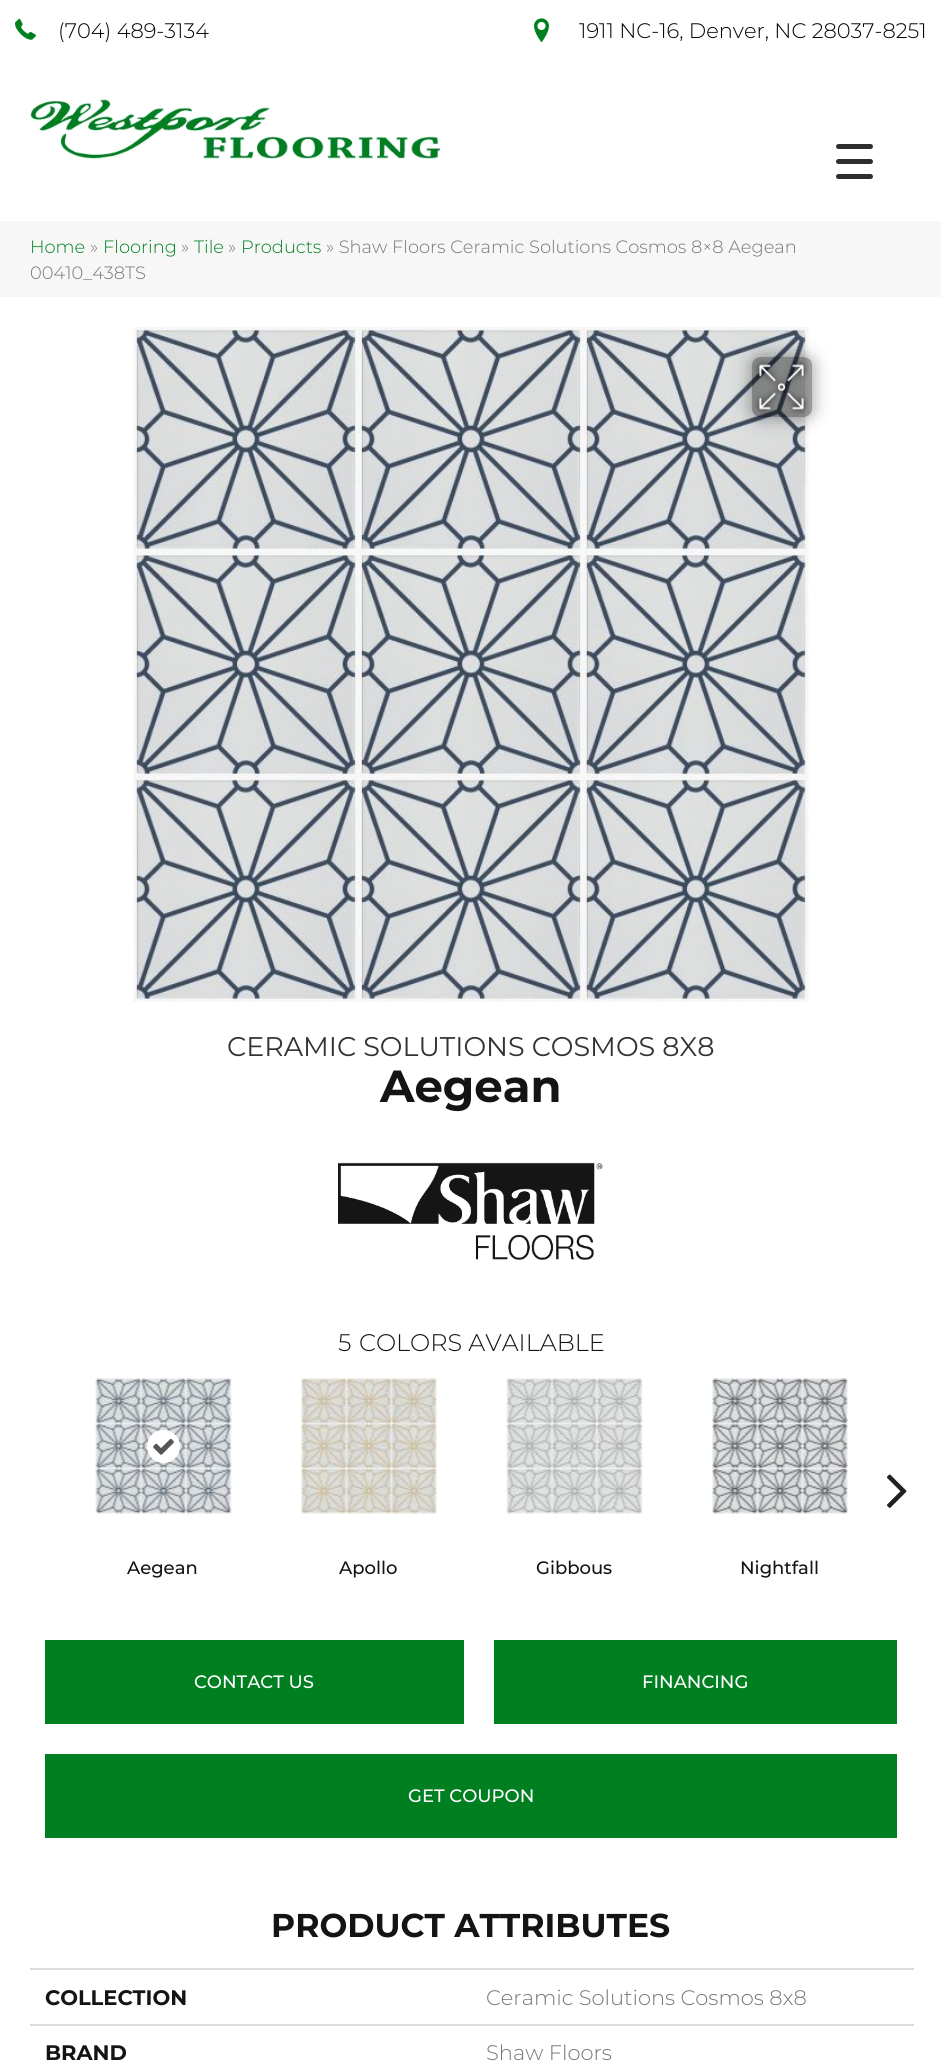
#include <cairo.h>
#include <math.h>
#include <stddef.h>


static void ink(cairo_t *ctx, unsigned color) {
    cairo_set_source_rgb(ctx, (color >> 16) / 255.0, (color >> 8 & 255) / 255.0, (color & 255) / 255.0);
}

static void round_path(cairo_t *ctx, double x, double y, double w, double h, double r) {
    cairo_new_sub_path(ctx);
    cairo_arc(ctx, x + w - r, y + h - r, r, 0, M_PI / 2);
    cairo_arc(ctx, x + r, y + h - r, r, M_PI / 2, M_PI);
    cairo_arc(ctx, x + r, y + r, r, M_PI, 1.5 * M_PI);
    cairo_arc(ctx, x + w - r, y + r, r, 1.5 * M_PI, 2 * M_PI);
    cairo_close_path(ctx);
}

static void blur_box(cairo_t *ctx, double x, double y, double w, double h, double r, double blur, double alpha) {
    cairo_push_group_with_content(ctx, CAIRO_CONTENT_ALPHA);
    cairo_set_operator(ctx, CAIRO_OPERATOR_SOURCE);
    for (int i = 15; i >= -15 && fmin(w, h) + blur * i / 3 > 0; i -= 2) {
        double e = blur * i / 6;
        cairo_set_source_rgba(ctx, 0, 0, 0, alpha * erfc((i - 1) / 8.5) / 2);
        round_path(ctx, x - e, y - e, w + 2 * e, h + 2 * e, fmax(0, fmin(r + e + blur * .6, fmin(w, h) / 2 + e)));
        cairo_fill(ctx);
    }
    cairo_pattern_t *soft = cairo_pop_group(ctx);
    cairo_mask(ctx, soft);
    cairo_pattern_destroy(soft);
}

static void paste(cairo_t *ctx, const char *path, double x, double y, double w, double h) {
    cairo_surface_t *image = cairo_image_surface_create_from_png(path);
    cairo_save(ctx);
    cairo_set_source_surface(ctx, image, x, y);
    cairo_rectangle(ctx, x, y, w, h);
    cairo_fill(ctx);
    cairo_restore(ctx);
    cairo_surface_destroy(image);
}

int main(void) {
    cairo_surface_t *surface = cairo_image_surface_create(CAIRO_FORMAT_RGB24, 941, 2064);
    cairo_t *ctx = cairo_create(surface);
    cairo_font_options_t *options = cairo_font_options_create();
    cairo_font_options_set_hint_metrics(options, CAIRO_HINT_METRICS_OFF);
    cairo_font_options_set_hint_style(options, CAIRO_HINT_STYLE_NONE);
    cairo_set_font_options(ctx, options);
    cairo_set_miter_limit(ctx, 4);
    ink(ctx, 0xFFFFFF);
    cairo_paint(ctx);
    paste(ctx, "media/1.png", 15, 18, 21, 22);
    cairo_select_font_face(ctx, "Montserrat Light", CAIRO_FONT_SLANT_NORMAL, CAIRO_FONT_WEIGHT_NORMAL);
    cairo_set_font_size(ctx, 21);
    ink(ctx, 0x000000);
    cairo_move_to(ctx, 58, 38);
    cairo_show_text(ctx, "(704) 489-3134");
    paste(ctx, "media/2.png", 534, 18, 15, 25);
    cairo_move_to(ctx, 579, 38);
    cairo_show_text(ctx, "1911 NC-16, Denver, NC 28037-8251");
    paste(ctx, "media/3.png", 30, 99, 411, 60);
    ink(ctx, 0xF7F7F7);
    cairo_rectangle(ctx, 0, 221, 941, 76);
    cairo_fill(ctx);
    cairo_set_font_size(ctx, 17.85);
    ink(ctx, 0x007F21);
    cairo_move_to(ctx, 30, 253);
    cairo_show_text(ctx, "Home");
    ink(ctx, 0x767676);
    cairo_move_to(ctx, 90, 253);
    cairo_show_text(ctx, "»");
    ink(ctx, 0x007F21);
    cairo_move_to(ctx, 103, 253);
    cairo_show_text(ctx, "Flooring");
    ink(ctx, 0x767676);
    cairo_move_to(ctx, 181, 253);
    cairo_show_text(ctx, "»");
    ink(ctx, 0x007F21);
    cairo_move_to(ctx, 194, 253);
    cairo_show_text(ctx, "Tile");
    ink(ctx, 0x767676);
    cairo_move_to(ctx, 228, 253);
    cairo_show_text(ctx, "»");
    ink(ctx, 0x007F21);
    cairo_move_to(ctx, 241, 253);
    cairo_show_text(ctx, "Products");
    ink(ctx, 0x767676);
    cairo_move_to(ctx, 326, 253);
    cairo_show_text(ctx, "» Shaw Floors Ceramic Solutions Cosmos 8×8 Aegean");
    cairo_move_to(ctx, 30, 279);
    cairo_show_text(ctx, "00410_438TS");
    paste(ctx, "media/4.png", 133, 327, 676, 675);
    cairo_save(ctx);
    cairo_set_fill_rule(ctx, CAIRO_FILL_RULE_EVEN_ODD);
    cairo_new_path(ctx);
    cairo_move_to(ctx, 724, 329);
    cairo_line_to(ctx, 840, 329);
    cairo_line_to(ctx, 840, 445);
    cairo_line_to(ctx, 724, 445);
    cairo_close_path(ctx);
    cairo_move_to(ctx, 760, 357);
    cairo_line_to(ctx, 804, 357);
    cairo_curve_to(ctx, 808.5, 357, 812, 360.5, 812, 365);
    cairo_line_to(ctx, 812, 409);
    cairo_curve_to(ctx, 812, 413.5, 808.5, 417, 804, 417);
    cairo_line_to(ctx, 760, 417);
    cairo_curve_to(ctx, 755.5, 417, 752, 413.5, 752, 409);
    cairo_line_to(ctx, 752, 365);
    cairo_curve_to(ctx, 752, 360.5, 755.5, 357, 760, 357);
    cairo_close_path(ctx);
    cairo_clip(ctx);
    ink(ctx, 0x000000);
    blur_box(ctx, 752, 357, 60, 60, 8, 9, 0.41);
    cairo_restore(ctx);
    cairo_set_source_rgba(ctx, 0, 0, 0, 0.4);
    round_path(ctx, 752, 357, 60, 60, 8);
    cairo_fill(ctx);
    paste(ctx, "media/5.png", 754, 359, 55, 56);
    cairo_select_font_face(ctx, "Montserrat", CAIRO_FONT_SLANT_NORMAL, CAIRO_FONT_WEIGHT_NORMAL);
    cairo_set_font_size(ctx, 27);
    ink(ctx, 0x333333);
    cairo_move_to(ctx, 227, 1056);
    cairo_show_text(ctx, "CERAMIC SOLUTIONS COSMOS 8X8");
    cairo_select_font_face(ctx, "Montserrat", CAIRO_FONT_SLANT_NORMAL, CAIRO_FONT_WEIGHT_BOLD);
    cairo_set_font_size(ctx, 45);
    ink(ctx, 0x141414);
    cairo_move_to(ctx, 380, 1102);
    cairo_show_text(ctx, "Aegean");
    paste(ctx, "media/6.png", 338, 1162, 265, 98);
    cairo_select_font_face(ctx, "Montserrat Light", CAIRO_FONT_SLANT_NORMAL, CAIRO_FONT_WEIGHT_NORMAL);
    cairo_set_font_size(ctx, 24);
    cairo_move_to(ctx, 338, 1351);
    cairo_show_text(ctx, "5");
    cairo_move_to(ctx, 359, 1351);
    cairo_show_text(ctx, "COLORS AVAILABLE");
    paste(ctx, "media/7.png", 886, 1474, 21, 34);
    paste(ctx, "media/8.png", 95, 1378, 137, 136);
    ink(ctx, 0xFFFFFF);
    cairo_arc(ctx, 163.5, 1446.5, 16.5, 0, 2 * M_PI);
    cairo_fill(ctx);
    paste(ctx, "media/9.png", 153, 1438, 21, 17);
    cairo_select_font_face(ctx, "Montserrat Medium", CAIRO_FONT_SLANT_NORMAL, CAIRO_FONT_WEIGHT_NORMAL);
    cairo_set_font_size(ctx, 18);
    ink(ctx, 0x141414);
    cairo_move_to(ctx, 127, 1574);
    cairo_show_text(ctx, "Aegean");
    paste(ctx, "media/10.png", 301, 1378, 136, 136);
    cairo_move_to(ctx, 339, 1574);
    cairo_show_text(ctx, "Apollo");
    paste(ctx, "media/11.png", 506, 1378, 137, 136);
    cairo_move_to(ctx, 536, 1574);
    cairo_show_text(ctx, "Gibbous");
    paste(ctx, "media/12.png", 712, 1378, 136, 136);
    cairo_move_to(ctx, 740, 1574);
    cairo_show_text(ctx, "Nightfall");
    ink(ctx, 0x007F21);
    cairo_rectangle(ctx, 45, 1640, 419, 84);
    cairo_fill(ctx);
    ink(ctx, 0xFFFFFF);
    cairo_move_to(ctx, 194, 1688);
    cairo_show_text(ctx, "CONTACT US");
    ink(ctx, 0x007F21);
    cairo_rectangle(ctx, 494, 1640, 403, 84);
    cairo_fill(ctx);
    ink(ctx, 0xFFFFFF);
    cairo_move_to(ctx, 642, 1688);
    cairo_show_text(ctx, "FINANCING");
    ink(ctx, 0x007F21);
    cairo_rectangle(ctx, 45, 1754, 852, 84);
    cairo_fill(ctx);
    ink(ctx, 0xFFFFFF);
    cairo_move_to(ctx, 408, 1802);
    cairo_show_text(ctx, "GET COUPON");
    cairo_select_font_face(ctx, "Montserrat", CAIRO_FONT_SLANT_NORMAL, CAIRO_FONT_WEIGHT_BOLD);
    cairo_set_font_size(ctx, 33);
    ink(ctx, 0x141414);
    cairo_move_to(ctx, 271, 1937);
    cairo_show_text(ctx, "PRODUCT ATTRIBUTES");
    cairo_set_font_size(ctx, 21);
    cairo_move_to(ctx, 45, 2005);
    cairo_show_text(ctx, "COLLECTION");
    ink(ctx, 0xDDDDDD);
    cairo_rectangle(ctx, 30, 1968, 884, 2);
    cairo_fill(ctx);
    cairo_select_font_face(ctx, "Montserrat Light", CAIRO_FONT_SLANT_NORMAL, CAIRO_FONT_WEIGHT_NORMAL);
    ink(ctx, 0x767676);
    cairo_move_to(ctx, 486, 2005);
    cairo_show_text(ctx, "Ceramic Solutions Cosmos 8x8");
    cairo_select_font_face(ctx, "Montserrat", CAIRO_FONT_SLANT_NORMAL, CAIRO_FONT_WEIGHT_BOLD);
    ink(ctx, 0x141414);
    cairo_move_to(ctx, 45, 2060);
    cairo_show_text(ctx, "BRAND");
    ink(ctx, 0xDDDDDD);
    cairo_rectangle(ctx, 30, 2024, 884, 2);
    cairo_fill(ctx);
    cairo_select_font_face(ctx, "Montserrat Light", CAIRO_FONT_SLANT_NORMAL, CAIRO_FONT_WEIGHT_NORMAL);
    ink(ctx, 0x767676);
    cairo_move_to(ctx, 486, 2060);
    cairo_show_text(ctx, "Shaw Floors");
    ink(ctx, 0x2E2E2E);
    round_path(ctx, 836, 159, 37, 5, 2.5);
    cairo_fill(ctx);
    round_path(ctx, 836, 144, 37, 5, 2.5);
    cairo_fill(ctx);
    round_path(ctx, 836, 174, 37, 5, 2.5);
    cairo_fill(ctx);
    cairo_surface_write_to_png(surface, "image.png");
    cairo_font_options_destroy(options);
    cairo_destroy(ctx);
    cairo_surface_destroy(surface);
    return 0;
}
